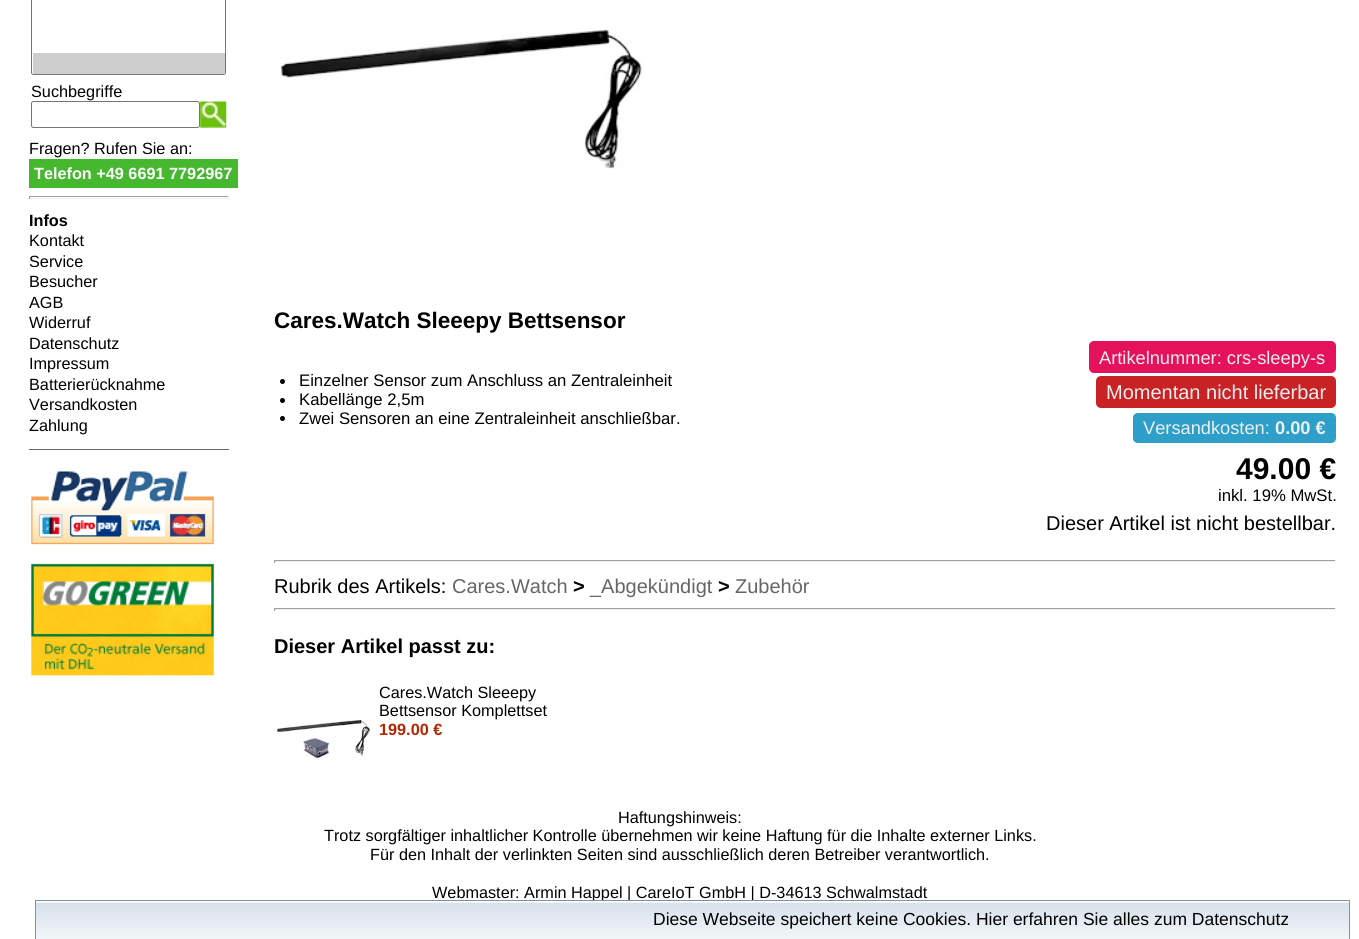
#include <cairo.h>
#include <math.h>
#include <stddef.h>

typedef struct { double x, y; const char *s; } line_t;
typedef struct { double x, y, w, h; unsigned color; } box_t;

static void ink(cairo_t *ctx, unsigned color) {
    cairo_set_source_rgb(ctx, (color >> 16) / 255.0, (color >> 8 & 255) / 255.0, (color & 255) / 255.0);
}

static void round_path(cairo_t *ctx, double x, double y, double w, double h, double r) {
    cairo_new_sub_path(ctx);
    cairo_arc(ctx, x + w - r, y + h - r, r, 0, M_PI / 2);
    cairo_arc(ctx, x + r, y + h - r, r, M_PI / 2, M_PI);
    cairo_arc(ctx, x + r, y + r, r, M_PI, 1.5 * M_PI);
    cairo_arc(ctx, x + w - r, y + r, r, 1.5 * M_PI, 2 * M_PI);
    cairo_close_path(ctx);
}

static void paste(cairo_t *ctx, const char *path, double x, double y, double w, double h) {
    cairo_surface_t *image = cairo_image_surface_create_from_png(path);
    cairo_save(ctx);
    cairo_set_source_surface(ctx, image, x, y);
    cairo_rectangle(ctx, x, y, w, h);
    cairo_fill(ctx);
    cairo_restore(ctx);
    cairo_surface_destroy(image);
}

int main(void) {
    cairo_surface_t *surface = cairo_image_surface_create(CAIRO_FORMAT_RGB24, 1359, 939);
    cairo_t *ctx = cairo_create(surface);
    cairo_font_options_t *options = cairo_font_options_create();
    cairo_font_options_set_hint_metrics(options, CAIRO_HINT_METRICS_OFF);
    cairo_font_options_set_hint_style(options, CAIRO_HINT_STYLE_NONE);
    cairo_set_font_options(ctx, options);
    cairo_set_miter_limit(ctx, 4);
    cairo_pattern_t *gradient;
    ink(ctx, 0xFFFFFF);
    cairo_paint(ctx);
    round_path(ctx, 31.5, -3.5, 194, 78, 2);
    ink(ctx, 0x767676);
    cairo_set_line_width(ctx, 1);
    cairo_stroke(ctx);
    ink(ctx, 0xCECECE);
    cairo_new_path(ctx);
    cairo_move_to(ctx, 33, 53);
    cairo_line_to(ctx, 225, 53);
    cairo_line_to(ctx, 225, 73);
    cairo_curve_to(ctx, 225, 73.5, 224.5, 74, 224, 74);
    cairo_line_to(ctx, 34, 74);
    cairo_curve_to(ctx, 33.5, 74, 33, 73.5, 33, 73);
    cairo_close_path(ctx);
    cairo_fill(ctx);
    cairo_select_font_face(ctx, "Liberation Sans", CAIRO_FONT_SLANT_NORMAL, CAIRO_FONT_WEIGHT_NORMAL);
    cairo_set_font_size(ctx, 16.25);
    ink(ctx, 0x000000);
    cairo_move_to(ctx, 31, 97);
    cairo_show_text(ctx, "Suchbegriffe");
    round_path(ctx, 31.5, 101.5, 168, 26, 2);
    ink(ctx, 0x767676);
    cairo_stroke(ctx);
    paste(ctx, "media/1.png", 200, 101, 27, 27);
    ink(ctx, 0x000000);
    cairo_move_to(ctx, 29, 154);
    cairo_show_text(ctx, "Fragen? Rufen Sie an:");
    ink(ctx, 0x46B82F);
    cairo_rectangle(ctx, 29, 159, 209, 29);
    cairo_fill(ctx);
    cairo_select_font_face(ctx, "Liberation Sans", CAIRO_FONT_SLANT_NORMAL, CAIRO_FONT_WEIGHT_BOLD);
    ink(ctx, 0xFFFFFF);
    cairo_move_to(ctx, 34, 179);
    cairo_show_text(ctx, "Telefon +49 6691 7792967");
    {
        static const box_t items[] = {
            {29, 196, 200, 1, 0x9F9F9F},
            {228, 196, 1, 3, 0xEEEEEE},
            {29, 198, 200, 1, 0xEEEEEE},
            {29, 196, 1, 3, 0x9F9F9F},
        };
        for (size_t i = 0; i < sizeof items / sizeof *items; i++) {
            ink(ctx, items[i].color);
            cairo_rectangle(ctx, items[i].x, items[i].y, items[i].w, items[i].h);
            cairo_fill(ctx);
        }
    }
    ink(ctx, 0x000000);
    cairo_move_to(ctx, 29, 226);
    cairo_show_text(ctx, "Infos");
    cairo_select_font_face(ctx, "Liberation Sans", CAIRO_FONT_SLANT_NORMAL, CAIRO_FONT_WEIGHT_NORMAL);
    {
        static const line_t items[] = {
            {29, 246, "Kontakt"},
            {29, 267, "Service"},
            {29, 287, "Besucher"},
            {29, 308, "AGB"},
            {29, 328, "Widerruf"},
            {29, 349, "Datenschutz"},
            {29, 369, "Impressum"},
            {29, 390, "Batterierücknahme"},
            {29, 410, "Versandkosten"},
            {29, 431, "Zahlung"},
        };
        for (size_t i = 0; i < sizeof items / sizeof *items; i++) {
            cairo_move_to(ctx, items[i].x, items[i].y);
            cairo_show_text(ctx, items[i].s);
        }
    }
    ink(ctx, 0x666666);
    cairo_rectangle(ctx, 29, 449, 200, 1);
    cairo_fill(ctx);
    paste(ctx, "media/2.png", 31, 471, 183, 74);
    paste(ctx, "media/3.png", 29, 562, 187, 116);
    paste(ctx, "media/4.png", 280, 29, 362, 140);
    cairo_select_font_face(ctx, "Liberation Sans", CAIRO_FONT_SLANT_NORMAL, CAIRO_FONT_WEIGHT_BOLD);
    cairo_set_font_size(ctx, 22.5);
    ink(ctx, 0x000000);
    cairo_move_to(ctx, 274, 328);
    cairo_show_text(ctx, "Cares.Watch Sleeepy Bettsensor");
    cairo_new_path(ctx);
    cairo_arc(ctx, 282.5, 381.5, 2.5, 0, 2 * M_PI);
    cairo_fill(ctx);
    cairo_select_font_face(ctx, "Liberation Sans", CAIRO_FONT_SLANT_NORMAL, CAIRO_FONT_WEIGHT_NORMAL);
    cairo_set_font_size(ctx, 16.7);
    cairo_move_to(ctx, 299, 386);
    cairo_show_text(ctx, "Einzelner Sensor zum Anschluss an Zentraleinheit");
    cairo_new_path(ctx);
    cairo_arc(ctx, 282.5, 400.5, 2.5, 0, 2 * M_PI);
    cairo_fill(ctx);
    cairo_move_to(ctx, 299, 405);
    cairo_show_text(ctx, "Kabellänge 2,5m");
    cairo_new_path(ctx);
    cairo_arc(ctx, 282.5, 418.5, 2.5, 0, 2 * M_PI);
    cairo_fill(ctx);
    cairo_move_to(ctx, 299, 424);
    cairo_show_text(ctx, "Zwei Sensoren an eine Zentraleinheit anschließbar.");
    ink(ctx, 0xE4115B);
    round_path(ctx, 1089, 341, 247, 32, 5);
    cairo_fill(ctx);
    cairo_set_font_size(ctx, 18.25);
    ink(ctx, 0xEEEEEE);
    cairo_move_to(ctx, 1099, 364);
    cairo_show_text(ctx, "Artikelnummer: crs-sleepy-s");
    ink(ctx, 0xC82225);
    round_path(ctx, 1096, 376, 240, 32, 5);
    cairo_fill(ctx);
    cairo_set_font_size(ctx, 20);
    ink(ctx, 0xEEEEEE);
    cairo_move_to(ctx, 1106, 399);
    cairo_show_text(ctx, "Momentan nicht lieferbar");
    ink(ctx, 0x2D9FC8);
    cairo_new_path(ctx);
    cairo_move_to(ctx, 1138, 413);
    cairo_line_to(ctx, 1275, 413);
    cairo_line_to(ctx, 1275, 443);
    cairo_line_to(ctx, 1138, 443);
    cairo_curve_to(ctx, 1135, 443, 1133, 441, 1133, 438);
    cairo_line_to(ctx, 1133, 418);
    cairo_curve_to(ctx, 1133, 415, 1135, 413, 1138, 413);
    cairo_close_path(ctx);
    cairo_fill(ctx);
    cairo_set_font_size(ctx, 18.25);
    ink(ctx, 0xEEEEEE);
    cairo_move_to(ctx, 1143, 434);
    cairo_show_text(ctx, "Versandkosten:");
    ink(ctx, 0x2D9FC8);
    cairo_new_path(ctx);
    cairo_move_to(ctx, 1275, 413);
    cairo_line_to(ctx, 1331, 413);
    cairo_curve_to(ctx, 1334, 413, 1336, 415, 1336, 418);
    cairo_line_to(ctx, 1336, 438);
    cairo_curve_to(ctx, 1336, 441, 1334, 443, 1331, 443);
    cairo_line_to(ctx, 1275, 443);
    cairo_close_path(ctx);
    cairo_fill(ctx);
    cairo_select_font_face(ctx, "Liberation Sans", CAIRO_FONT_SLANT_NORMAL, CAIRO_FONT_WEIGHT_BOLD);
    ink(ctx, 0xEEEEEE);
    cairo_move_to(ctx, 1275, 434);
    cairo_show_text(ctx, "0.00 €");
    cairo_set_font_size(ctx, 30);
    ink(ctx, 0x000000);
    cairo_move_to(ctx, 1236, 479);
    cairo_show_text(ctx, "49.00 €");
    cairo_select_font_face(ctx, "Liberation Sans", CAIRO_FONT_SLANT_NORMAL, CAIRO_FONT_WEIGHT_NORMAL);
    cairo_set_font_size(ctx, 16.7);
    cairo_move_to(ctx, 1218, 501);
    cairo_show_text(ctx, "inkl. 19% MwSt.");
    cairo_set_font_size(ctx, 20);
    cairo_move_to(ctx, 1046, 530);
    cairo_show_text(ctx, "Dieser Artikel ist nicht bestellbar.");
    {
        static const box_t items[] = {
            {274, 560, 1062, 1, 0x9F9F9F},
            {1335, 560, 1, 3, 0xEEEEEE},
            {274, 561, 1062, 1, 0xEEEEEE},
            {274, 560, 1, 3, 0x9F9F9F},
        };
        for (size_t i = 0; i < sizeof items / sizeof *items; i++) {
            ink(ctx, items[i].color);
            cairo_rectangle(ctx, items[i].x, items[i].y, items[i].w, items[i].h);
            cairo_fill(ctx);
        }
    }
    ink(ctx, 0x000000);
    cairo_move_to(ctx, 274, 593);
    cairo_show_text(ctx, "Rubrik des Artikels:");
    ink(ctx, 0x666666);
    cairo_move_to(ctx, 452, 593);
    cairo_show_text(ctx, "Cares.Watch");
    cairo_select_font_face(ctx, "Liberation Sans", CAIRO_FONT_SLANT_NORMAL, CAIRO_FONT_WEIGHT_BOLD);
    ink(ctx, 0x000000);
    cairo_move_to(ctx, 573, 593);
    cairo_show_text(ctx, ">");
    cairo_select_font_face(ctx, "Liberation Sans", CAIRO_FONT_SLANT_NORMAL, CAIRO_FONT_WEIGHT_NORMAL);
    ink(ctx, 0x666666);
    cairo_move_to(ctx, 590, 593);
    cairo_show_text(ctx, "_Abgekündigt");
    cairo_select_font_face(ctx, "Liberation Sans", CAIRO_FONT_SLANT_NORMAL, CAIRO_FONT_WEIGHT_BOLD);
    ink(ctx, 0x000000);
    cairo_move_to(ctx, 718, 593);
    cairo_show_text(ctx, ">");
    cairo_select_font_face(ctx, "Liberation Sans", CAIRO_FONT_SLANT_NORMAL, CAIRO_FONT_WEIGHT_NORMAL);
    ink(ctx, 0x666666);
    cairo_move_to(ctx, 735, 593);
    cairo_show_text(ctx, "Zubehör");
    {
        static const box_t items[] = {
            {274, 608, 1062, 1, 0x9F9F9F},
            {1335, 608, 1, 3, 0xEEEEEE},
            {274, 609, 1062, 1, 0xEEEEEE},
            {274, 608, 1, 3, 0x9F9F9F},
        };
        for (size_t i = 0; i < sizeof items / sizeof *items; i++) {
            ink(ctx, items[i].color);
            cairo_rectangle(ctx, items[i].x, items[i].y, items[i].w, items[i].h);
            cairo_fill(ctx);
        }
    }
    cairo_select_font_face(ctx, "Liberation Sans", CAIRO_FONT_SLANT_NORMAL, CAIRO_FONT_WEIGHT_BOLD);
    ink(ctx, 0x000000);
    cairo_move_to(ctx, 274, 653);
    cairo_show_text(ctx, "Dieser Artikel passt zu:");
    cairo_select_font_face(ctx, "Liberation Sans", CAIRO_FONT_SLANT_NORMAL, CAIRO_FONT_WEIGHT_NORMAL);
    cairo_set_font_size(ctx, 16.25);
    cairo_move_to(ctx, 379, 698);
    cairo_show_text(ctx, "Cares.Watch Sleeepy");
    cairo_move_to(ctx, 379, 716);
    cairo_show_text(ctx, "Bettsensor Komplettset");
    paste(ctx, "media/5.png", 276, 719, 95, 39);
    cairo_select_font_face(ctx, "Liberation Sans", CAIRO_FONT_SLANT_NORMAL, CAIRO_FONT_WEIGHT_BOLD);
    ink(ctx, 0xB12704);
    cairo_move_to(ctx, 379, 735);
    cairo_show_text(ctx, "199.00 €");
    cairo_select_font_face(ctx, "Liberation Sans", CAIRO_FONT_SLANT_NORMAL, CAIRO_FONT_WEIGHT_NORMAL);
    ink(ctx, 0x000000);
    {
        static const line_t items[] = {
            {618, 823, "Haftungshinweis:"},
            {324, 841, "Trotz sorgfältiger inhaltlicher Kontrolle übernehmen wir keine Haftung für die Inhalte externer Links."},
            {370, 860, "Für den Inhalt der verlinkten Seiten sind ausschließlich deren Betreiber verantwortlich."},
            {432, 898, "Webmaster: Armin Happel | CareIoT GmbH | D-34613 Schwalmstadt"},
        };
        for (size_t i = 0; i < sizeof items / sizeof *items; i++) {
            cairo_move_to(ctx, items[i].x, items[i].y);
            cairo_show_text(ctx, items[i].s);
        }
    }
    gradient = cairo_pattern_create_linear(693, 865, 693, 903);
    cairo_pattern_add_color_stop_rgba(gradient, 0, 0.839, 0.878, 0.922, 1);
    cairo_pattern_add_color_stop_rgba(gradient, 1, 0.949, 0.965, 0.976, 1);
    cairo_set_source(ctx, gradient);
    cairo_pattern_destroy(gradient);
    cairo_rectangle(ctx, 36, 902, 1313, 1);
    cairo_fill(ctx);
    gradient = cairo_pattern_create_linear(693, 902, 693, 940);
    cairo_pattern_add_color_stop_rgba(gradient, 0, 0.839, 0.878, 0.922, 1);
    cairo_pattern_add_color_stop_rgba(gradient, 1, 0.949, 0.965, 0.976, 1);
    cairo_set_source(ctx, gradient);
    cairo_pattern_destroy(gradient);
    cairo_rectangle(ctx, 36, 903, 1313, 36);
    cairo_fill(ctx);
    ink(ctx, 0xFFFFFF);
    cairo_rectangle(ctx, 593, 901, 161, 1);
    cairo_fill(ctx);
    cairo_rectangle(ctx, 35.5, 900.5, 1314, 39);
    ink(ctx, 0x7B92A9);
    cairo_stroke(ctx);
    cairo_set_font_size(ctx, 17.5);
    ink(ctx, 0x000000);
    cairo_move_to(ctx, 653, 925);
    cairo_show_text(ctx, "Diese Webseite speichert keine Cookies. Hier erfahren Sie alles zum Datenschutz");
    cairo_surface_write_to_png(surface, "image.png");
    cairo_font_options_destroy(options);
    cairo_destroy(ctx);
    cairo_surface_destroy(surface);
    return 0;
}
